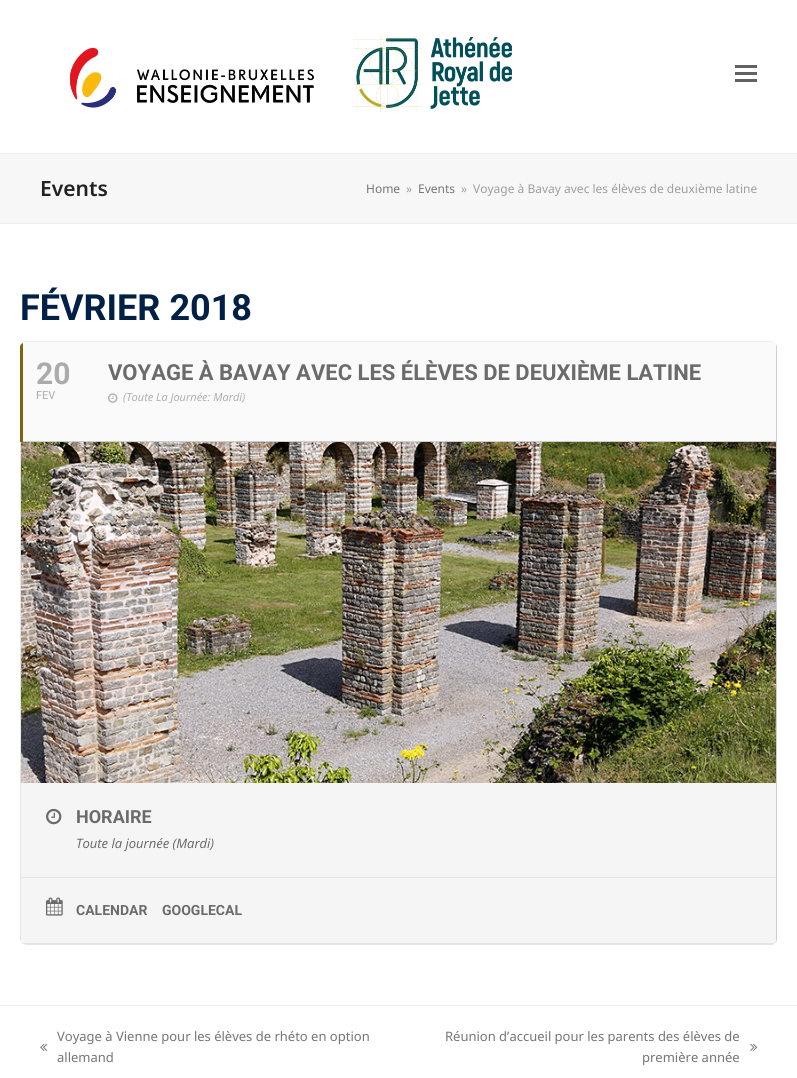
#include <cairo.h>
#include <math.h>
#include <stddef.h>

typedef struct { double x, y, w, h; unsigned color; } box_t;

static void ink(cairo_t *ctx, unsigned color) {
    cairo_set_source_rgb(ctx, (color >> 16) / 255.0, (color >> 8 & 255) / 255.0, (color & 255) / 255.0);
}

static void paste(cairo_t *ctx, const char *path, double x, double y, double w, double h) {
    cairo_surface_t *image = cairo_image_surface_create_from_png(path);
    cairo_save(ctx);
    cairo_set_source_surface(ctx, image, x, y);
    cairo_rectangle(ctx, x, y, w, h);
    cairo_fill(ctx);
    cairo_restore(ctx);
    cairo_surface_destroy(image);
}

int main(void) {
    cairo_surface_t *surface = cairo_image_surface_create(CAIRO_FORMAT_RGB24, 797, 1078);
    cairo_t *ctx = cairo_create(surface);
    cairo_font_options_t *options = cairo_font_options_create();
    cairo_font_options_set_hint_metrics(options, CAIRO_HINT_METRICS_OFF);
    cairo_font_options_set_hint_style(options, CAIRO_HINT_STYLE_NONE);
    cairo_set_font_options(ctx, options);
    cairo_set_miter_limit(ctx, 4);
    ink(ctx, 0xFFFFFF);
    cairo_paint(ctx);
    paste(ctx, "media/1.png", 70, 34, 442, 78);
    {
        static const box_t items[] = {
            {735, 72, 22, 3, 0x616161},
            {735, 65, 22, 3, 0x616161},
            {735, 79, 22, 3, 0x616161},
            {0, 154, 797, 69, 0xF7F7F7},
            {0, 153, 797, 1, 0xEEEEEE},
            {0, 223, 797, 1, 0xEEEEEE},
        };
        for (size_t i = 0; i < sizeof items / sizeof *items; i++) {
            ink(ctx, items[i].color);
            cairo_rectangle(ctx, items[i].x, items[i].y, items[i].w, items[i].h);
            cairo_fill(ctx);
        }
    }
    cairo_select_font_face(ctx, "Noto Sans SemiBold", CAIRO_FONT_SLANT_NORMAL, CAIRO_FONT_WEIGHT_NORMAL);
    cairo_set_font_size(ctx, 21);
    ink(ctx, 0x222222);
    cairo_move_to(ctx, 40, 196);
    cairo_show_text(ctx, "Events");
    cairo_select_font_face(ctx, "Noto Sans", CAIRO_FONT_SLANT_NORMAL, CAIRO_FONT_WEIGHT_NORMAL);
    cairo_set_font_size(ctx, 12);
    ink(ctx, 0x757575);
    cairo_move_to(ctx, 366, 193);
    cairo_show_text(ctx, "Home");
    ink(ctx, 0x9E9E9E);
    cairo_move_to(ctx, 406, 193);
    cairo_show_text(ctx, "»");
    ink(ctx, 0x757575);
    cairo_move_to(ctx, 418, 193);
    cairo_show_text(ctx, "Events");
    ink(ctx, 0x9E9E9E);
    cairo_move_to(ctx, 461, 193);
    cairo_show_text(ctx, "»");
    cairo_move_to(ctx, 473, 193);
    cairo_show_text(ctx, "Voyage à Bavay avec les élèves de deuxième latine");
    cairo_select_font_face(ctx, "Roboto", CAIRO_FONT_SLANT_NORMAL, CAIRO_FONT_WEIGHT_BOLD);
    cairo_set_font_size(ctx, 36);
    ink(ctx, 0x002045);
    cairo_move_to(ctx, 20, 320);
    cairo_show_text(ctx, "FÉVRIER 2018");
    ink(ctx, 0xEFEEEE);
    cairo_new_path(ctx);
    cairo_move_to(ctx, 26, 341);
    cairo_line_to(ctx, 771, 341);
    cairo_curve_to(ctx, 772, 341, 774, 342, 775, 343);
    cairo_curve_to(ctx, 774, 342, 772, 342, 771, 342);
    cairo_line_to(ctx, 26, 342);
    cairo_curve_to(ctx, 23, 342, 20, 344, 20, 347);
    cairo_curve_to(ctx, 20, 344, 23, 341, 26, 341);
    cairo_close_path(ctx);
    cairo_fill(ctx);
    ink(ctx, 0xCDCDCD);
    cairo_new_path(ctx);
    cairo_move_to(ctx, 775, 343);
    cairo_curve_to(ctx, 776, 344, 776, 346, 776, 347);
    cairo_line_to(ctx, 776, 939);
    cairo_curve_to(ctx, 776, 942, 774, 945, 771, 945);
    cairo_curve_to(ctx, 774, 945, 777, 942, 777, 939);
    cairo_line_to(ctx, 777, 347);
    cairo_curve_to(ctx, 777, 346, 776, 344, 775, 343);
    cairo_close_path(ctx);
    cairo_fill(ctx);
    ink(ctx, 0xFAFAFA);
    cairo_new_path(ctx);
    cairo_move_to(ctx, 26, 342);
    cairo_curve_to(ctx, 23, 342, 20, 344, 20, 347);
    cairo_line_to(ctx, 20, 442);
    cairo_line_to(ctx, 776, 442);
    cairo_line_to(ctx, 776, 347);
    cairo_curve_to(ctx, 776, 344, 774, 342, 771, 342);
    cairo_close_path(ctx);
    cairo_fill(ctx);
    ink(ctx, 0x80630A);
    cairo_new_path(ctx);
    cairo_move_to(ctx, 23, 343);
    cairo_curve_to(ctx, 21, 344, 20, 345, 20, 347);
    cairo_line_to(ctx, 20, 442);
    cairo_line_to(ctx, 23, 442);
    cairo_close_path(ctx);
    cairo_fill(ctx);
    cairo_set_font_size(ctx, 30);
    ink(ctx, 0xABABAB);
    cairo_move_to(ctx, 36, 384);
    cairo_show_text(ctx, "20");
    cairo_select_font_face(ctx, "Roboto", CAIRO_FONT_SLANT_NORMAL, CAIRO_FONT_WEIGHT_NORMAL);
    cairo_set_font_size(ctx, 11);
    cairo_move_to(ctx, 36, 399);
    cairo_show_text(ctx, "FEV");
    cairo_select_font_face(ctx, "Roboto", CAIRO_FONT_SLANT_NORMAL, CAIRO_FONT_WEIGHT_BOLD);
    cairo_set_font_size(ctx, 22);
    ink(ctx, 0x6B6B6B);
    cairo_move_to(ctx, 108, 380);
    cairo_show_text(ctx, "VOYAGE À BAVAY AVEC LES ÉLÈVES DE DEUXIÈME LATINE");
    paste(ctx, "media/2.png", 108, 393, 10, 10);
    cairo_select_font_face(ctx, "Open Sans", CAIRO_FONT_SLANT_ITALIC, CAIRO_FONT_WEIGHT_NORMAL);
    cairo_set_font_size(ctx, 11);
    ink(ctx, 0xABABAB);
    cairo_move_to(ctx, 123, 401);
    cairo_show_text(ctx, "(Toute La Journée: Mardi)");
    ink(ctx, 0xCDCDCD);
    cairo_rectangle(ctx, 23, 441, 753, 1);
    cairo_fill(ctx);
    ink(ctx, 0xF5F5F5);
    cairo_new_path(ctx);
    cairo_move_to(ctx, 20, 442);
    cairo_line_to(ctx, 20, 939);
    cairo_curve_to(ctx, 20, 942, 23, 945, 26, 945);
    cairo_line_to(ctx, 771, 945);
    cairo_curve_to(ctx, 774, 945, 776, 942, 776, 939);
    cairo_line_to(ctx, 776, 442);
    cairo_close_path(ctx);
    cairo_fill(ctx);
    ink(ctx, 0xE5E5E5);
    cairo_new_path(ctx);
    cairo_move_to(ctx, 26, 945);
    cairo_line_to(ctx, 771, 945);
    cairo_line_to(ctx, 774, 944);
    cairo_line_to(ctx, 23, 944);
    cairo_close_path(ctx);
    cairo_fill(ctx);
    cairo_new_path(ctx);
    cairo_move_to(ctx, 20, 442);
    cairo_line_to(ctx, 20, 939);
    cairo_line_to(ctx, 21, 942);
    cairo_line_to(ctx, 21, 442);
    cairo_close_path(ctx);
    cairo_fill(ctx);
    paste(ctx, "media/3.png", 21, 442, 755, 341);
    cairo_rectangle(ctx, 21, 877, 755, 1);
    cairo_fill(ctx);
    paste(ctx, "media/4.png", 46, 808, 16, 17);
    cairo_select_font_face(ctx, "Roboto", CAIRO_FONT_SLANT_NORMAL, CAIRO_FONT_WEIGHT_BOLD);
    cairo_set_font_size(ctx, 18);
    ink(ctx, 0x6B6B6B);
    cairo_move_to(ctx, 76, 823);
    cairo_show_text(ctx, "HORAIRE");
    cairo_select_font_face(ctx, "Open Sans", CAIRO_FONT_SLANT_ITALIC, CAIRO_FONT_WEIGHT_NORMAL);
    cairo_set_font_size(ctx, 13);
    ink(ctx, 0x656565);
    cairo_move_to(ctx, 76, 848);
    cairo_show_text(ctx, "Toute la journée (Mardi)");
    ink(ctx, 0xF5F5F5);
    cairo_new_path(ctx);
    cairo_move_to(ctx, 21, 878);
    cairo_line_to(ctx, 776, 878);
    cairo_line_to(ctx, 776, 939);
    cairo_curve_to(ctx, 776, 941, 775, 943, 774, 944);
    cairo_line_to(ctx, 23, 944);
    cairo_line_to(ctx, 21, 942);
    cairo_close_path(ctx);
    cairo_fill(ctx);
    ink(ctx, 0xE5E5E5);
    cairo_new_path(ctx);
    cairo_move_to(ctx, 23, 944);
    cairo_line_to(ctx, 22, 943);
    cairo_line_to(ctx, 775, 943);
    cairo_line_to(ctx, 774, 944);
    cairo_close_path(ctx);
    cairo_fill(ctx);
    paste(ctx, "media/5.png", 46, 897, 17, 19);
    cairo_select_font_face(ctx, "Roboto", CAIRO_FONT_SLANT_NORMAL, CAIRO_FONT_WEIGHT_BOLD);
    cairo_set_font_size(ctx, 14);
    ink(ctx, 0x6B6B6B);
    cairo_move_to(ctx, 76, 915);
    cairo_show_text(ctx, "CALENDAR");
    cairo_move_to(ctx, 162, 915);
    cairo_show_text(ctx, "GOOGLECAL");
    ink(ctx, 0xEEEEEE);
    cairo_rectangle(ctx, 0, 1005, 797, 1);
    cairo_fill(ctx);
    cairo_select_font_face(ctx, "Noto Sans", CAIRO_FONT_SLANT_NORMAL, CAIRO_FONT_WEIGHT_NORMAL);
    cairo_set_font_size(ctx, 13);
    ink(ctx, 0x757575);
    cairo_move_to(ctx, 57, 1041);
    cairo_show_text(ctx, "Voyage à Vienne pour les élèves de rhéto en option");
    paste(ctx, "media/6.png", 40, 1043, 8, 8);
    cairo_move_to(ctx, 57, 1062);
    cairo_show_text(ctx, "allemand");
    cairo_move_to(ctx, 445, 1041);
    cairo_show_text(ctx, "Réunion d’accueil pour les parents des élèves de");
    paste(ctx, "media/7.png", 750, 1043, 8, 8);
    cairo_move_to(ctx, 642, 1062);
    cairo_show_text(ctx, "première année");
    cairo_surface_write_to_png(surface, "image.png");
    cairo_font_options_destroy(options);
    cairo_destroy(ctx);
    cairo_surface_destroy(surface);
    return 0;
}
